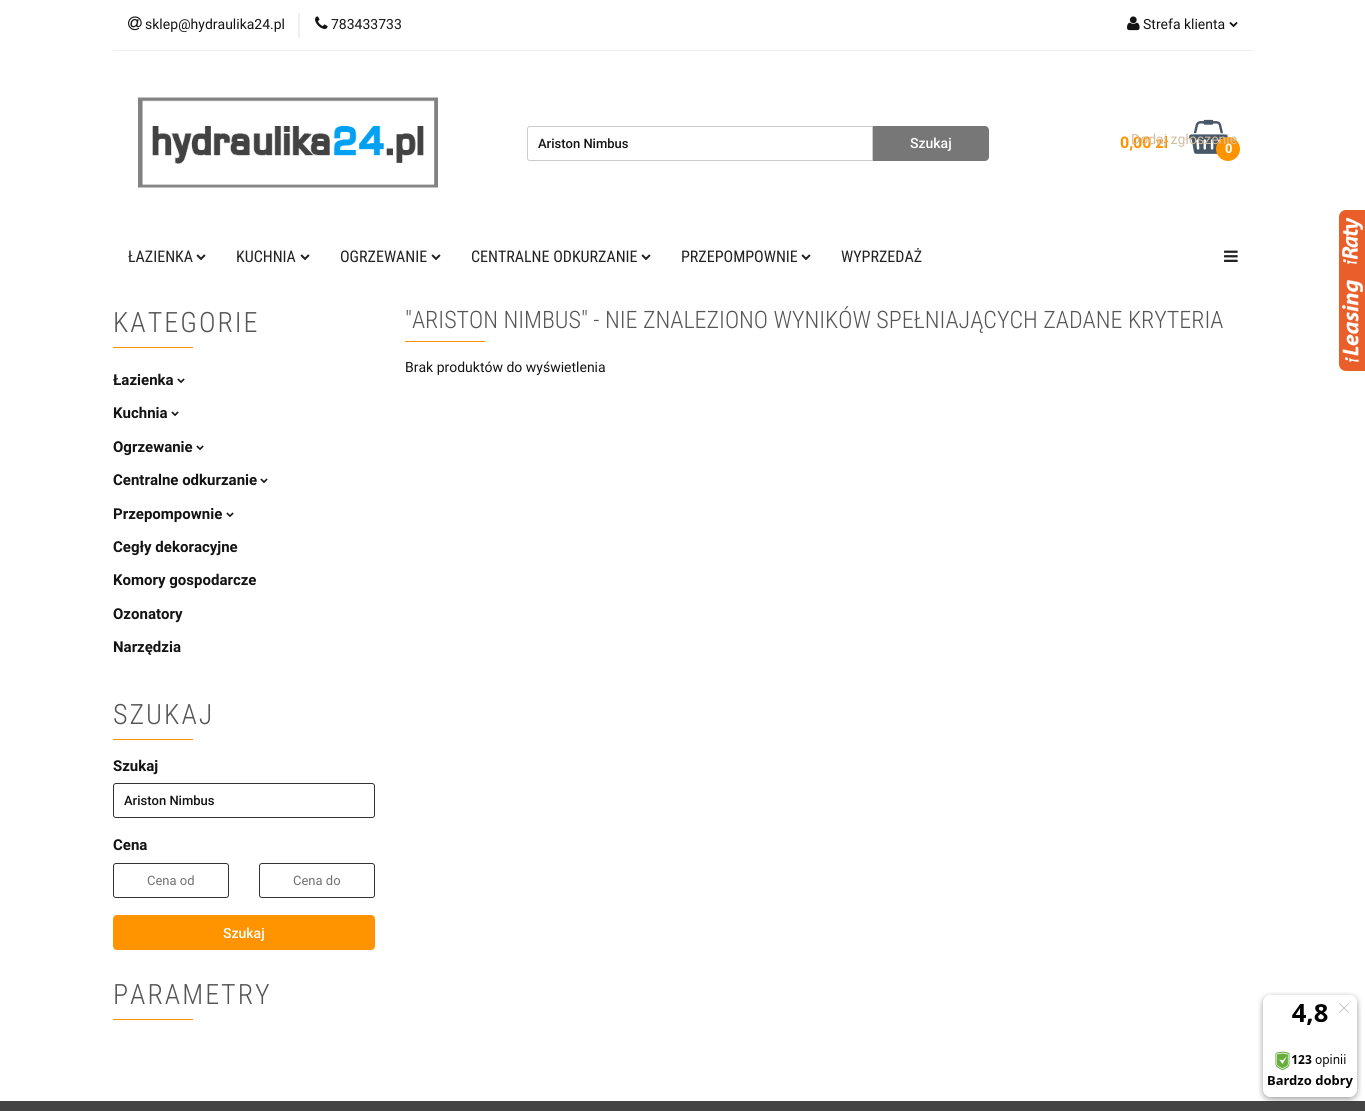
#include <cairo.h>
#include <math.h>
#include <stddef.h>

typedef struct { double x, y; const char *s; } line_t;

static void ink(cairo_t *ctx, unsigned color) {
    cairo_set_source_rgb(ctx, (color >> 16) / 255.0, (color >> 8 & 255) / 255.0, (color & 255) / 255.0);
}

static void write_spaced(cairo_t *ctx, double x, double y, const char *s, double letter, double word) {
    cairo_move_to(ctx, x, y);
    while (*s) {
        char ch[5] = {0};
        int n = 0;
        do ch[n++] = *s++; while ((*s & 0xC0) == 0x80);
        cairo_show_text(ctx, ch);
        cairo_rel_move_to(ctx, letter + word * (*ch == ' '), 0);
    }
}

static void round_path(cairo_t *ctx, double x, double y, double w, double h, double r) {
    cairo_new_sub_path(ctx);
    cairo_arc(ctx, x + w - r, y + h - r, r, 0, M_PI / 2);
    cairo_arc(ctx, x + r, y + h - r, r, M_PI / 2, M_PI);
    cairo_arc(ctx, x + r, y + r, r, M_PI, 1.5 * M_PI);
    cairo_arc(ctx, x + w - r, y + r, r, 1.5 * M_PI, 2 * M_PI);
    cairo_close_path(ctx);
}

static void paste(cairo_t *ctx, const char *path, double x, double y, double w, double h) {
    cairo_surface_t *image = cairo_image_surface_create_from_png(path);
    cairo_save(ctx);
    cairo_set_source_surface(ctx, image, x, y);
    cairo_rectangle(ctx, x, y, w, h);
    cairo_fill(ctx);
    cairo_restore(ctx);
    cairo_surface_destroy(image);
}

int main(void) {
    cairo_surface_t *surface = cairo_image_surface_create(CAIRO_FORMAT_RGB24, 1365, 1111);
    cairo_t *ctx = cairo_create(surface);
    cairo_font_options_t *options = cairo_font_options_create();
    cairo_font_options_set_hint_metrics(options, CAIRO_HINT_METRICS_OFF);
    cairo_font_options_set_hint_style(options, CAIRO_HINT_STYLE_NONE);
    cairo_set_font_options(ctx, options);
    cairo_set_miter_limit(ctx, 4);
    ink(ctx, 0xFFFFFF);
    cairo_paint(ctx);
    ink(ctx, 0xEFEFEF);
    cairo_rectangle(ctx, 113, 50, 1140, 1);
    cairo_fill(ctx);
    paste(ctx, "media/1.png", 128, 16, 14, 15);
    cairo_select_font_face(ctx, "Roboto", CAIRO_FONT_SLANT_NORMAL, CAIRO_FONT_WEIGHT_NORMAL);
    cairo_set_font_size(ctx, 14);
    ink(ctx, 0x131313);
    cairo_move_to(ctx, 145, 29);
    cairo_show_text(ctx, "sklep@hydraulika24.pl");
    ink(ctx, 0xEFEFEF);
    cairo_rectangle(ctx, 298, 13, 2, 25);
    cairo_fill(ctx);
    paste(ctx, "media/2.png", 315, 16, 13, 13);
    ink(ctx, 0x131313);
    cairo_move_to(ctx, 331, 29);
    cairo_show_text(ctx, "783433733");
    paste(ctx, "media/3.png", 1127, 16, 13, 15);
    cairo_move_to(ctx, 1143, 29);
    cairo_show_text(ctx, "Strefa klienta");
    paste(ctx, "media/4.png", 1229, 22, 9, 6);
    cairo_select_font_face(ctx, "Roboto", CAIRO_FONT_SLANT_NORMAL, CAIRO_FONT_WEIGHT_BOLD);
    cairo_set_font_size(ctx, 16);
    ink(ctx, 0xFF9300);
    cairo_move_to(ctx, 1120, 148);
    cairo_show_text(ctx, "0,00 zł");
    paste(ctx, "media/6.png", 1189, 119, 39, 35);
    cairo_arc(ctx, 1228, 149, 12, 0, 2 * M_PI);
    cairo_fill(ctx);
    cairo_select_font_face(ctx, "Roboto", CAIRO_FONT_SLANT_NORMAL, CAIRO_FONT_WEIGHT_NORMAL);
    cairo_set_font_size(ctx, 14);
    ink(ctx, 0xD2BD9E);
    cairo_move_to(ctx, 1131, 144);
    cairo_show_text(ctx, "Dodaj zgłoszenie");
    paste(ctx, "media/5.png", 138, 97, 300, 91);
    cairo_new_path(ctx);
    cairo_move_to(ctx, 530, 126.5);
    cairo_line_to(ctx, 872.5, 126.5);
    cairo_line_to(ctx, 872.5, 160.5);
    cairo_line_to(ctx, 530, 160.5);
    cairo_curve_to(ctx, 528.5, 160.5, 527.5, 159.5, 527.5, 158);
    cairo_line_to(ctx, 527.5, 129);
    cairo_curve_to(ctx, 527.5, 127.5, 528.5, 126.5, 530, 126.5);
    cairo_close_path(ctx);
    ink(ctx, 0xCCCCCC);
    cairo_set_line_width(ctx, 1);
    cairo_stroke(ctx);
    cairo_select_font_face(ctx, "Roboto Medium", CAIRO_FONT_SLANT_NORMAL, CAIRO_FONT_WEIGHT_NORMAL);
    cairo_set_font_size(ctx, 13);
    ink(ctx, 0x131313);
    cairo_move_to(ctx, 538, 148);
    cairo_show_text(ctx, "Ariston Nimbus");
    ink(ctx, 0x777777);
    cairo_new_path(ctx);
    cairo_move_to(ctx, 874, 127);
    cairo_line_to(ctx, 985, 127);
    cairo_curve_to(ctx, 986.5, 127, 988, 128.5, 988, 130);
    cairo_line_to(ctx, 988, 157);
    cairo_curve_to(ctx, 988, 158.5, 986.5, 160, 985, 160);
    cairo_line_to(ctx, 874, 160);
    cairo_close_path(ctx);
    cairo_fill_preserve(ctx);
    cairo_set_line_width(ctx, 2);
    cairo_stroke(ctx);
    cairo_set_font_size(ctx, 14);
    ink(ctx, 0xFFFFFF);
    cairo_move_to(ctx, 910, 148);
    cairo_show_text(ctx, "Szukaj");
    cairo_select_font_face(ctx, "Roboto", CAIRO_FONT_SLANT_NORMAL, CAIRO_FONT_WEIGHT_BOLD);
    cairo_set_font_size(ctx, 13);
    cairo_move_to(ctx, 1225, 153);
    cairo_show_text(ctx, "0");
    cairo_select_font_face(ctx, "Roboto Condensed", CAIRO_FONT_SLANT_NORMAL, CAIRO_FONT_WEIGHT_NORMAL);
    cairo_set_font_size(ctx, 16);
    ink(ctx, 0x222222);
    cairo_move_to(ctx, 128, 262);
    cairo_show_text(ctx, "ŁAZIENKA");
    paste(ctx, "media/7.png", 196, 254, 10, 7);
    cairo_move_to(ctx, 236, 262);
    cairo_show_text(ctx, "KUCHNIA");
    paste(ctx, "media/7.png", 300, 254, 10, 7);
    cairo_move_to(ctx, 340, 262);
    cairo_show_text(ctx, "OGRZEWANIE");
    paste(ctx, "media/7.png", 431, 254, 10, 7);
    cairo_move_to(ctx, 471, 262);
    cairo_show_text(ctx, "CENTRALNE ODKURZANIE");
    paste(ctx, "media/7.png", 641, 254, 10, 7);
    cairo_move_to(ctx, 681, 262);
    cairo_show_text(ctx, "PRZEPOMPOWNIE");
    paste(ctx, "media/7.png", 801, 254, 10, 7);
    cairo_move_to(ctx, 841, 262);
    cairo_show_text(ctx, "WYPRZEDAŻ");
    paste(ctx, "media/8.png", 1224, 250, 14, 12);
    cairo_select_font_face(ctx, "Roboto Condensed Light", CAIRO_FONT_SLANT_NORMAL, CAIRO_FONT_WEIGHT_NORMAL);
    cairo_set_font_size(ctx, 28);
    ink(ctx, 0x555555);
    write_spaced(ctx, 113, 332, "KATEGORIE", 2, 0);
    ink(ctx, 0xFF9300);
    cairo_rectangle(ctx, 113, 347, 80, 1);
    cairo_fill(ctx);
    cairo_select_font_face(ctx, "Roboto", CAIRO_FONT_SLANT_NORMAL, CAIRO_FONT_WEIGHT_BOLD);
    cairo_set_font_size(ctx, 15);
    ink(ctx, 0x131313);
    cairo_move_to(ctx, 113, 385);
    cairo_show_text(ctx, "Łazienka");
    paste(ctx, "media/9.png", 177, 378, 8, 6);
    cairo_move_to(ctx, 113, 418);
    cairo_show_text(ctx, "Kuchnia");
    paste(ctx, "media/9.png", 171, 411, 8, 6);
    cairo_move_to(ctx, 113, 452);
    cairo_show_text(ctx, "Ogrzewanie");
    paste(ctx, "media/9.png", 196, 445, 8, 6);
    cairo_move_to(ctx, 113, 485);
    cairo_show_text(ctx, "Centralne odkurzanie");
    paste(ctx, "media/9.png", 260, 478, 8, 6);
    cairo_move_to(ctx, 113, 519);
    cairo_show_text(ctx, "Przepompownie");
    paste(ctx, "media/9.png", 226, 512, 8, 6);
    {
        static const line_t items[] = {
            {113, 552, "Cegły dekoracyjne"},
            {113, 585, "Komory gospodarcze"},
            {113, 619, "Ozonatory"},
            {113, 652, "Narzędzia"},
        };
        for (size_t i = 0; i < sizeof items / sizeof *items; i++) {
            cairo_move_to(ctx, items[i].x, items[i].y);
            cairo_show_text(ctx, items[i].s);
        }
    }
    cairo_select_font_face(ctx, "Roboto Condensed Light", CAIRO_FONT_SLANT_NORMAL, CAIRO_FONT_WEIGHT_NORMAL);
    cairo_set_font_size(ctx, 28);
    ink(ctx, 0x555555);
    write_spaced(ctx, 113, 724, "SZUKAJ", 2, 0);
    ink(ctx, 0xFF9300);
    cairo_rectangle(ctx, 113, 739, 80, 1);
    cairo_fill(ctx);
    cairo_select_font_face(ctx, "Roboto", CAIRO_FONT_SLANT_NORMAL, CAIRO_FONT_WEIGHT_BOLD);
    cairo_set_font_size(ctx, 15);
    ink(ctx, 0x131313);
    cairo_move_to(ctx, 113, 771);
    cairo_show_text(ctx, "Szukaj");
    round_path(ctx, 113.5, 783.5, 261, 34, 2.5);
    ink(ctx, 0x333333);
    cairo_set_line_width(ctx, 1);
    cairo_stroke(ctx);
    cairo_select_font_face(ctx, "Roboto Medium", CAIRO_FONT_SLANT_NORMAL, CAIRO_FONT_WEIGHT_NORMAL);
    cairo_set_font_size(ctx, 13);
    ink(ctx, 0x131313);
    cairo_move_to(ctx, 124, 805);
    cairo_show_text(ctx, "Ariston Nimbus");
    cairo_select_font_face(ctx, "Roboto", CAIRO_FONT_SLANT_NORMAL, CAIRO_FONT_WEIGHT_BOLD);
    cairo_set_font_size(ctx, 15);
    cairo_move_to(ctx, 113, 850);
    cairo_show_text(ctx, "Cena");
    round_path(ctx, 113.5, 863.5, 115, 34, 2.5);
    ink(ctx, 0x333333);
    cairo_stroke(ctx);
    cairo_select_font_face(ctx, "Roboto", CAIRO_FONT_SLANT_NORMAL, CAIRO_FONT_WEIGHT_NORMAL);
    cairo_set_font_size(ctx, 13);
    ink(ctx, 0x717171);
    cairo_move_to(ctx, 147, 885);
    cairo_show_text(ctx, "Cena od");
    round_path(ctx, 259.5, 863.5, 115, 34, 2.5);
    ink(ctx, 0x333333);
    cairo_stroke(ctx);
    ink(ctx, 0x717171);
    cairo_move_to(ctx, 293, 885);
    cairo_show_text(ctx, "Cena do");
    ink(ctx, 0xFF9300);
    round_path(ctx, 114.5, 916.5, 259, 32, 2.5);
    cairo_fill_preserve(ctx);
    cairo_set_line_width(ctx, 3);
    cairo_stroke(ctx);
    cairo_select_font_face(ctx, "Roboto Medium", CAIRO_FONT_SLANT_NORMAL, CAIRO_FONT_WEIGHT_NORMAL);
    cairo_set_font_size(ctx, 14);
    ink(ctx, 0xFFFFFF);
    cairo_move_to(ctx, 223, 938);
    cairo_show_text(ctx, "Szukaj");
    cairo_select_font_face(ctx, "Roboto Condensed Light", CAIRO_FONT_SLANT_NORMAL, CAIRO_FONT_WEIGHT_NORMAL);
    cairo_set_font_size(ctx, 28);
    ink(ctx, 0x555555);
    write_spaced(ctx, 113, 1004, "PARAMETRY", 2, 0);
    ink(ctx, 0xFF9300);
    cairo_rectangle(ctx, 113, 1019, 80, 1);
    cairo_fill(ctx);
    cairo_set_font_size(ctx, 24);
    ink(ctx, 0x555555);
    cairo_move_to(ctx, 405, 328);
    cairo_show_text(ctx, "\"ARISTON NIMBUS\" - NIE ZNALEZIONO WYNIKÓW SPEŁNIAJĄCYCH ZADANE KRYTERIA");
    ink(ctx, 0xFF9300);
    cairo_rectangle(ctx, 405, 341, 80, 1);
    cairo_fill(ctx);
    cairo_select_font_face(ctx, "Roboto", CAIRO_FONT_SLANT_NORMAL, CAIRO_FONT_WEIGHT_NORMAL);
    cairo_set_font_size(ctx, 14);
    ink(ctx, 0x131313);
    cairo_move_to(ctx, 405, 372);
    cairo_show_text(ctx, "Brak produktów do wyświetlenia");
    ink(ctx, 0x444444);
    cairo_rectangle(ctx, 0, 1101, 1365, 10);
    cairo_fill(ctx);
    paste(ctx, "media/10.png", 1339, 210, 26, 161);
    paste(ctx, "media/11.png", 1258, 992, 104, 110);
    cairo_surface_write_to_png(surface, "image.png");
    cairo_font_options_destroy(options);
    cairo_destroy(ctx);
    cairo_surface_destroy(surface);
    return 0;
}
